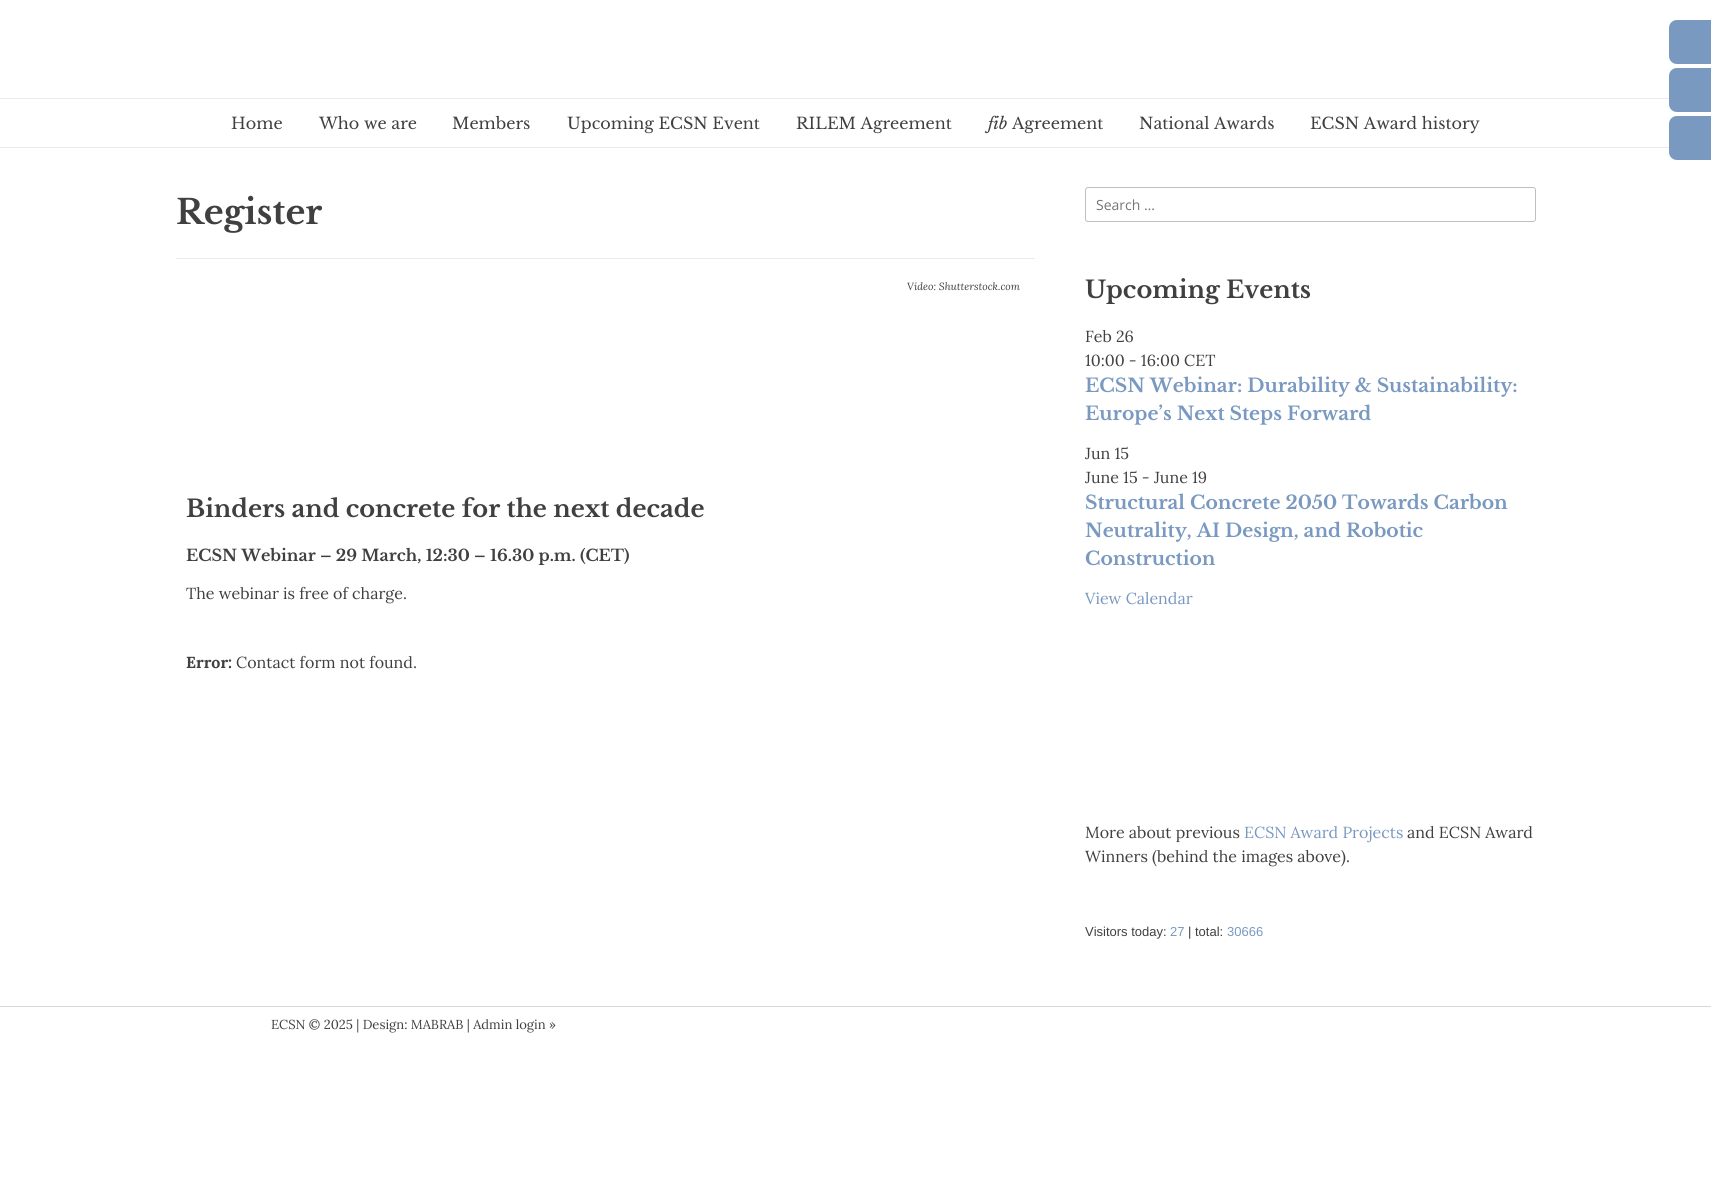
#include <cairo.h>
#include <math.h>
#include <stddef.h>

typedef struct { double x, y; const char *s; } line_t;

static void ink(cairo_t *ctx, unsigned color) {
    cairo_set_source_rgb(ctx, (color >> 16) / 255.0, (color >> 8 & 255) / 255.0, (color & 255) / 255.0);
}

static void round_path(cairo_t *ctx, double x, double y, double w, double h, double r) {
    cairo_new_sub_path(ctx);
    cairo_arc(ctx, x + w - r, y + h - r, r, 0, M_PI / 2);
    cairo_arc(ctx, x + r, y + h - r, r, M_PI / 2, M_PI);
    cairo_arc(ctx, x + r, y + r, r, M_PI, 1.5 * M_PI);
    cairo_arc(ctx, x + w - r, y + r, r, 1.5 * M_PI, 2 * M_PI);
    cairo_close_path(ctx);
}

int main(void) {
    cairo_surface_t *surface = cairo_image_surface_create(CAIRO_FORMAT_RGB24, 1711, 1187);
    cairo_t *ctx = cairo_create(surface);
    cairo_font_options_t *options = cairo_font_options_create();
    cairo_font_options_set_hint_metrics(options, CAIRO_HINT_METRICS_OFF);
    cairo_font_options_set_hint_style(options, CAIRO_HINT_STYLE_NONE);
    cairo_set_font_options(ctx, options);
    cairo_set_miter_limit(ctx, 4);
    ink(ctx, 0xFFFFFF);
    cairo_paint(ctx);
    ink(ctx, 0x7999C1);
    cairo_new_path(ctx);
    cairo_move_to(ctx, 1677, 20);
    cairo_line_to(ctx, 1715, 20);
    cairo_line_to(ctx, 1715, 64);
    cairo_line_to(ctx, 1677, 64);
    cairo_curve_to(ctx, 1672.5, 64, 1669, 60.5, 1669, 56);
    cairo_line_to(ctx, 1669, 28);
    cairo_curve_to(ctx, 1669, 23.5, 1672.5, 20, 1677, 20);
    cairo_close_path(ctx);
    cairo_fill(ctx);
    cairo_new_path(ctx);
    cairo_move_to(ctx, 1677, 68);
    cairo_line_to(ctx, 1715, 68);
    cairo_line_to(ctx, 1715, 112);
    cairo_line_to(ctx, 1677, 112);
    cairo_curve_to(ctx, 1672.5, 112, 1669, 108.5, 1669, 104);
    cairo_line_to(ctx, 1669, 76);
    cairo_curve_to(ctx, 1669, 71.5, 1672.5, 68, 1677, 68);
    cairo_close_path(ctx);
    cairo_fill(ctx);
    cairo_new_path(ctx);
    cairo_move_to(ctx, 1677, 116);
    cairo_line_to(ctx, 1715, 116);
    cairo_line_to(ctx, 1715, 160);
    cairo_line_to(ctx, 1677, 160);
    cairo_curve_to(ctx, 1672.5, 160, 1669, 156.5, 1669, 152);
    cairo_line_to(ctx, 1669, 124);
    cairo_curve_to(ctx, 1669, 119.5, 1672.5, 116, 1677, 116);
    cairo_close_path(ctx);
    cairo_fill(ctx);
    ink(ctx, 0xEBEBEB);
    cairo_rectangle(ctx, 0, 147, 1669, 1);
    cairo_fill(ctx);
    cairo_rectangle(ctx, 0, 98, 1669, 1);
    cairo_fill(ctx);
    cairo_select_font_face(ctx, "Libre Baskerville", CAIRO_FONT_SLANT_NORMAL, CAIRO_FONT_WEIGHT_NORMAL);
    cairo_set_font_size(ctx, 16);
    ink(ctx, 0x404040);
    {
        static const line_t items[] = {
            {231, 129, "Home"},
            {319, 129, "Who we are"},
            {452, 129, "Members"},
            {567, 129, "Upcoming ECSN Event"},
            {796, 129, "RILEM Agreement"},
        };
        for (size_t i = 0; i < sizeof items / sizeof *items; i++) {
            cairo_move_to(ctx, items[i].x, items[i].y);
            cairo_show_text(ctx, items[i].s);
        }
    }
    cairo_select_font_face(ctx, "Libre Baskerville", CAIRO_FONT_SLANT_ITALIC, CAIRO_FONT_WEIGHT_NORMAL);
    cairo_move_to(ctx, 988, 129);
    cairo_show_text(ctx, "fib");
    cairo_select_font_face(ctx, "Libre Baskerville", CAIRO_FONT_SLANT_NORMAL, CAIRO_FONT_WEIGHT_NORMAL);
    {
        static const line_t items[] = {
            {1012, 129, "Agreement"},
            {1139, 129, "National Awards"},
            {1310, 129, "ECSN Award history"},
        };
        for (size_t i = 0; i < sizeof items / sizeof *items; i++) {
            cairo_move_to(ctx, items[i].x, items[i].y);
            cairo_show_text(ctx, items[i].s);
        }
    }
    ink(ctx, 0xEBEBEB);
    cairo_rectangle(ctx, 176, 258, 859, 1);
    cairo_fill(ctx);
    cairo_select_font_face(ctx, "Libre Baskerville", CAIRO_FONT_SLANT_NORMAL, CAIRO_FONT_WEIGHT_BOLD);
    cairo_set_font_size(ctx, 34);
    ink(ctx, 0x404040);
    cairo_move_to(ctx, 176, 224);
    cairo_show_text(ctx, "Register");
    cairo_select_font_face(ctx, "Lora", CAIRO_FONT_SLANT_ITALIC, CAIRO_FONT_WEIGHT_NORMAL);
    cairo_set_font_size(ctx, 10.4);
    cairo_move_to(ctx, 907, 290);
    cairo_show_text(ctx, "Video: Shutterstock.com");
    cairo_select_font_face(ctx, "Libre Baskerville", CAIRO_FONT_SLANT_NORMAL, CAIRO_FONT_WEIGHT_BOLD);
    cairo_set_font_size(ctx, 24);
    cairo_move_to(ctx, 186, 517);
    cairo_show_text(ctx, "Binders and concrete for the next decade");
    cairo_set_font_size(ctx, 16);
    cairo_move_to(ctx, 186, 561);
    cairo_show_text(ctx, "ECSN Webinar – 29 March, 12:30 – 16.30 p.m. (CET)");
    cairo_select_font_face(ctx, "Lora", CAIRO_FONT_SLANT_NORMAL, CAIRO_FONT_WEIGHT_NORMAL);
    cairo_move_to(ctx, 186, 599);
    cairo_show_text(ctx, "The webinar is free of charge.");
    cairo_select_font_face(ctx, "Lora", CAIRO_FONT_SLANT_NORMAL, CAIRO_FONT_WEIGHT_BOLD);
    cairo_move_to(ctx, 186, 668);
    cairo_show_text(ctx, "Error:");
    cairo_select_font_face(ctx, "Lora", CAIRO_FONT_SLANT_NORMAL, CAIRO_FONT_WEIGHT_NORMAL);
    cairo_move_to(ctx, 236, 668);
    cairo_show_text(ctx, "Contact form not found.");
    round_path(ctx, 1085.5, 187.5, 450, 34, 2.5);
    ink(ctx, 0xBFBFBF);
    cairo_set_line_width(ctx, 1);
    cairo_stroke(ctx);
    cairo_select_font_face(ctx, "Open Sans", CAIRO_FONT_SLANT_NORMAL, CAIRO_FONT_WEIGHT_NORMAL);
    cairo_set_font_size(ctx, 14);
    ink(ctx, 0x757575);
    cairo_move_to(ctx, 1096, 210);
    cairo_show_text(ctx, "Search …");
    cairo_select_font_face(ctx, "Libre Baskerville", CAIRO_FONT_SLANT_NORMAL, CAIRO_FONT_WEIGHT_BOLD);
    cairo_set_font_size(ctx, 24);
    ink(ctx, 0x404040);
    cairo_move_to(ctx, 1085, 298);
    cairo_show_text(ctx, "Upcoming Events");
    cairo_select_font_face(ctx, "Lora", CAIRO_FONT_SLANT_NORMAL, CAIRO_FONT_WEIGHT_NORMAL);
    cairo_set_font_size(ctx, 16);
    cairo_move_to(ctx, 1085, 342);
    cairo_show_text(ctx, "Feb 26");
    cairo_move_to(ctx, 1085, 366);
    cairo_show_text(ctx, "10:00 - 16:00 CET");
    cairo_select_font_face(ctx, "Libre Baskerville", CAIRO_FONT_SLANT_NORMAL, CAIRO_FONT_WEIGHT_BOLD);
    cairo_set_font_size(ctx, 18.75);
    ink(ctx, 0x7999C1);
    cairo_move_to(ctx, 1085, 392);
    cairo_show_text(ctx, "ECSN Webinar: Durability & Sustainability:");
    cairo_move_to(ctx, 1085, 420);
    cairo_show_text(ctx, "Europe’s Next Steps Forward");
    cairo_select_font_face(ctx, "Lora", CAIRO_FONT_SLANT_NORMAL, CAIRO_FONT_WEIGHT_NORMAL);
    cairo_set_font_size(ctx, 16);
    ink(ctx, 0x404040);
    cairo_move_to(ctx, 1085, 459);
    cairo_show_text(ctx, "Jun 15");
    cairo_move_to(ctx, 1085, 483);
    cairo_show_text(ctx, "June 15 - June 19");
    cairo_select_font_face(ctx, "Libre Baskerville", CAIRO_FONT_SLANT_NORMAL, CAIRO_FONT_WEIGHT_BOLD);
    cairo_set_font_size(ctx, 18.75);
    ink(ctx, 0x7999C1);
    {
        static const line_t items[] = {
            {1085, 509, "Structural Concrete 2050 Towards Carbon"},
            {1085, 537, "Neutrality, AI Design, and Robotic"},
            {1085, 565, "Construction"},
        };
        for (size_t i = 0; i < sizeof items / sizeof *items; i++) {
            cairo_move_to(ctx, items[i].x, items[i].y);
            cairo_show_text(ctx, items[i].s);
        }
    }
    cairo_select_font_face(ctx, "Lora", CAIRO_FONT_SLANT_NORMAL, CAIRO_FONT_WEIGHT_NORMAL);
    cairo_set_font_size(ctx, 16);
    cairo_move_to(ctx, 1085, 604);
    cairo_show_text(ctx, "View Calendar");
    ink(ctx, 0x404040);
    cairo_move_to(ctx, 1085, 838);
    cairo_show_text(ctx, "More about previous");
    ink(ctx, 0x7999C1);
    cairo_move_to(ctx, 1244, 838);
    cairo_show_text(ctx, "ECSN Award Projects");
    ink(ctx, 0x404040);
    cairo_move_to(ctx, 1407, 838);
    cairo_show_text(ctx, "and ECSN Award");
    cairo_move_to(ctx, 1085, 862);
    cairo_show_text(ctx, "Winners (behind the images above).");
    cairo_select_font_face(ctx, "Liberation Sans", CAIRO_FONT_SLANT_NORMAL, CAIRO_FONT_WEIGHT_NORMAL);
    cairo_set_font_size(ctx, 13);
    cairo_move_to(ctx, 1085, 936);
    cairo_show_text(ctx, "Visitors today:");
    ink(ctx, 0x7999C1);
    cairo_move_to(ctx, 1170, 936);
    cairo_show_text(ctx, "27");
    ink(ctx, 0x404040);
    cairo_move_to(ctx, 1188, 936);
    cairo_show_text(ctx, "| total:");
    ink(ctx, 0x7999C1);
    cairo_move_to(ctx, 1227, 936);
    cairo_show_text(ctx, "30666");
    ink(ctx, 0xD8D8D8);
    cairo_rectangle(ctx, 0, 1006, 1711, 1);
    cairo_fill(ctx);
    cairo_select_font_face(ctx, "Lora", CAIRO_FONT_SLANT_NORMAL, CAIRO_FONT_WEIGHT_NORMAL);
    ink(ctx, 0x404040);
    cairo_move_to(ctx, 271, 1029);
    cairo_show_text(ctx, "ECSN © 2025 | Design: MABRAB | Admin login »");
    cairo_surface_write_to_png(surface, "image.png");
    cairo_font_options_destroy(options);
    cairo_destroy(ctx);
    cairo_surface_destroy(surface);
    return 0;
}
